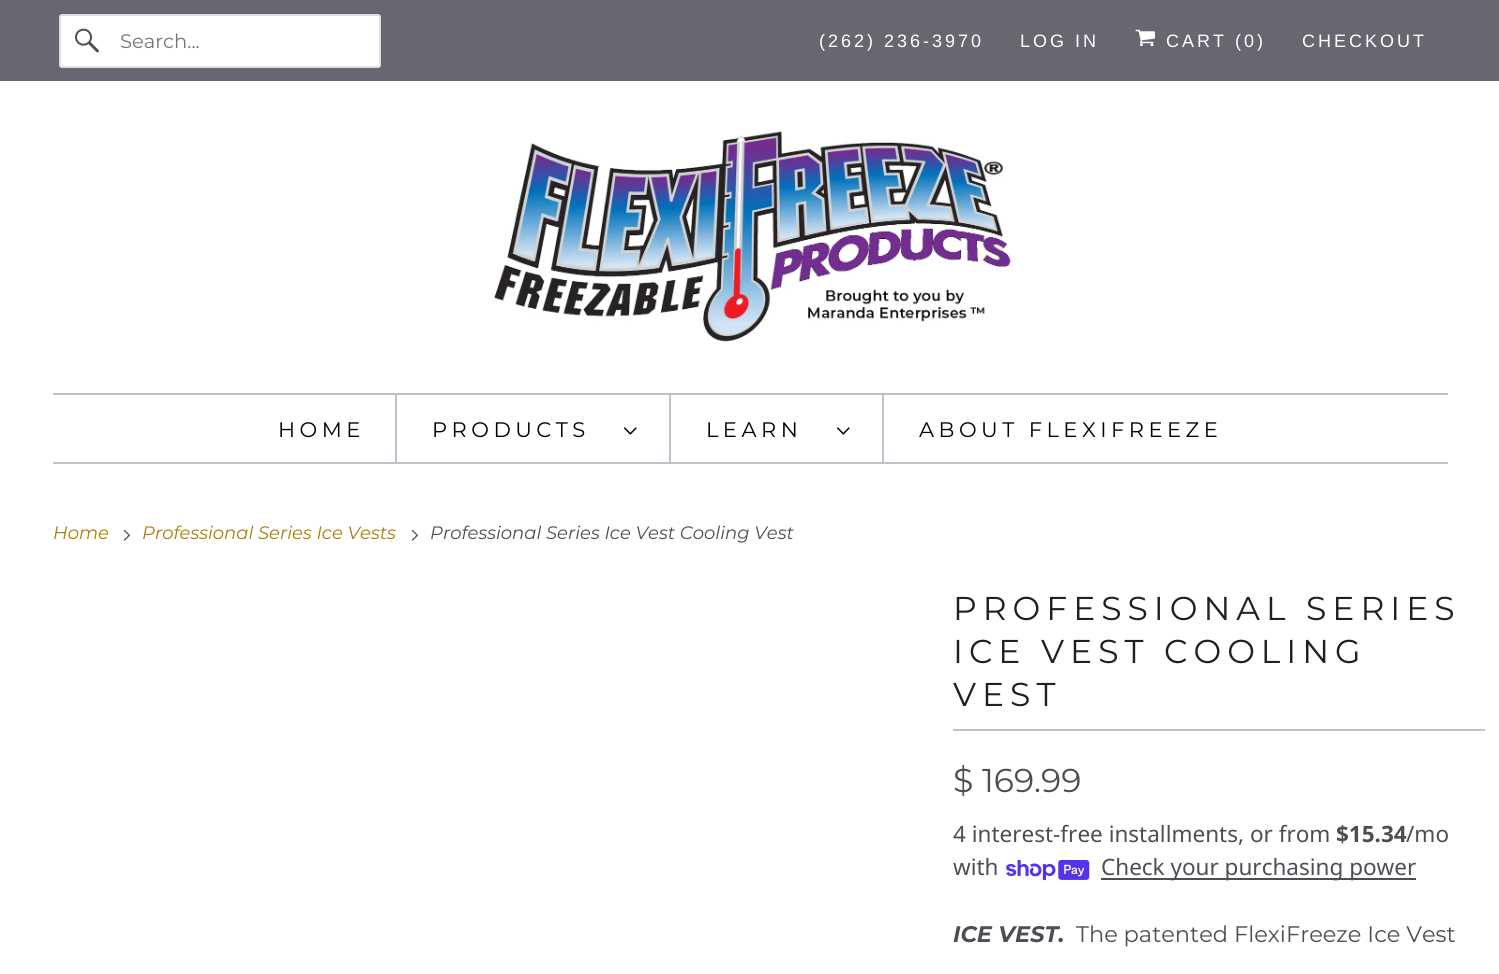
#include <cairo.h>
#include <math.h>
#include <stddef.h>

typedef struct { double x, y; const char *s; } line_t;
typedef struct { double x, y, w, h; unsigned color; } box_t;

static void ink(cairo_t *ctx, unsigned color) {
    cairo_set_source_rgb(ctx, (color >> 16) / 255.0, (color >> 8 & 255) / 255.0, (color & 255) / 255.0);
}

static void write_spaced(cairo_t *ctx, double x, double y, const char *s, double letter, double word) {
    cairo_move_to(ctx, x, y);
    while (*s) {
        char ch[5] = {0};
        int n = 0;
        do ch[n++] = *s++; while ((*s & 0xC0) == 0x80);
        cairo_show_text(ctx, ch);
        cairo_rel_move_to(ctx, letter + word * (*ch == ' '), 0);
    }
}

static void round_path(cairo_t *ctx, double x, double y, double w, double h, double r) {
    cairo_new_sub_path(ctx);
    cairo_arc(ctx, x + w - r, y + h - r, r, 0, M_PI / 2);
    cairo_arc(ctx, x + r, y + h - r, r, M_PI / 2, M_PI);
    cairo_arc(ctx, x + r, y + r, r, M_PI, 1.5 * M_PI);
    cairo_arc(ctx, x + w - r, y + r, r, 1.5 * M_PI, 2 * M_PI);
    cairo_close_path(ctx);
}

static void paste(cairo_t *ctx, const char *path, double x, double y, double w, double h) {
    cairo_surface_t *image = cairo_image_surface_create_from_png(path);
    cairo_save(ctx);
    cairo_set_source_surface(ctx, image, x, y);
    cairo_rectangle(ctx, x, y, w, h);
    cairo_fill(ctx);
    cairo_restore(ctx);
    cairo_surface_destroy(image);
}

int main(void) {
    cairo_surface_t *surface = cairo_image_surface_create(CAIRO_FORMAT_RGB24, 1499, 974);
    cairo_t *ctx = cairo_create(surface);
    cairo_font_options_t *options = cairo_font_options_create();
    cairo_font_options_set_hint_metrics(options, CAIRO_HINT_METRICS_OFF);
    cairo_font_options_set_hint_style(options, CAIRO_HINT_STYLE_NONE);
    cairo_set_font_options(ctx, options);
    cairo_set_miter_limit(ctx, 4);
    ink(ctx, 0xFFFFFF);
    cairo_paint(ctx);
    ink(ctx, 0x6A6671);
    cairo_rectangle(ctx, 0, 0, 1499, 81);
    cairo_fill(ctx);
    ink(ctx, 0xFFFFFF);
    round_path(ctx, 60, 15, 320, 52, 2);
    cairo_fill_preserve(ctx);
    ink(ctx, 0xDFDFDF);
    cairo_stroke(ctx);
    paste(ctx, "media/1.png", 75, 28, 24, 25);
    cairo_select_font_face(ctx, "Montserrat", CAIRO_FONT_SLANT_NORMAL, CAIRO_FONT_WEIGHT_NORMAL);
    cairo_set_font_size(ctx, 19.5);
    ink(ctx, 0x757575);
    cairo_move_to(ctx, 120, 48);
    cairo_show_text(ctx, "Search...");
    cairo_select_font_face(ctx, "Liberation Sans", CAIRO_FONT_SLANT_NORMAL, CAIRO_FONT_WEIGHT_NORMAL);
    cairo_set_font_size(ctx, 18);
    ink(ctx, 0xFFFFFF);
    write_spaced(ctx, 819, 47, "(262) 236-3970", 3, 0);
    write_spaced(ctx, 1020, 47, "LOG IN", 3, 0);
    paste(ctx, "media/2.png", 1135, 29, 20, 18);
    write_spaced(ctx, 1166, 47, "CART (0)", 3, 0);
    write_spaced(ctx, 1302, 47, "CHECKOUT", 3, 0);
    paste(ctx, "media/3.png", 494, 131, 518, 211);
    {
        static const box_t items[] = {
            {53, 393, 1395, 2, 0xC2C1CC},
            {53, 462, 1395, 2, 0xC2C1CC},
            {395, 395, 2, 67, 0xC2C1CC},
        };
        for (size_t i = 0; i < sizeof items / sizeof *items; i++) {
            ink(ctx, items[i].color);
            cairo_rectangle(ctx, items[i].x, items[i].y, items[i].w, items[i].h);
            cairo_fill(ctx);
        }
    }
    cairo_select_font_face(ctx, "Montserrat", CAIRO_FONT_SLANT_NORMAL, CAIRO_FONT_WEIGHT_NORMAL);
    cairo_set_font_size(ctx, 21);
    ink(ctx, 0x000000);
    write_spaced(ctx, 278, 437, "HOME", 4.5, 0);
    ink(ctx, 0xC2C1CC);
    cairo_rectangle(ctx, 669, 395, 2, 67);
    cairo_fill(ctx);
    ink(ctx, 0x000000);
    write_spaced(ctx, 432, 437, "PRODUCTS", 4.5, 0);
    paste(ctx, "media/4.png", 624, 427, 13, 8);
    ink(ctx, 0xC2C1CC);
    cairo_rectangle(ctx, 882, 395, 2, 67);
    cairo_fill(ctx);
    ink(ctx, 0x000000);
    write_spaced(ctx, 706, 437, "LEARN", 4.5, 0);
    paste(ctx, "media/4.png", 837, 427, 13, 8);
    write_spaced(ctx, 919, 437, "ABOUT FLEXIFREEZE", 4.5, 0);
    cairo_select_font_face(ctx, "Montserrat", CAIRO_FONT_SLANT_ITALIC, CAIRO_FONT_WEIGHT_NORMAL);
    cairo_set_font_size(ctx, 18);
    ink(ctx, 0xAB7D07);
    cairo_move_to(ctx, 53, 539);
    cairo_show_text(ctx, "Home");
    paste(ctx, "media/5.png", 123, 529, 7, 12);
    cairo_move_to(ctx, 142, 539);
    cairo_show_text(ctx, "Professional Series Ice Vests");
    paste(ctx, "media/5.png", 411, 529, 7, 12);
    ink(ctx, 0x4B4F54);
    cairo_move_to(ctx, 430, 539);
    cairo_show_text(ctx, "Professional Series Ice Vest Cooling Vest");
    ink(ctx, 0xC2C1CC);
    cairo_rectangle(ctx, 953, 729, 532, 2);
    cairo_fill(ctx);
    cairo_select_font_face(ctx, "Montserrat", CAIRO_FONT_SLANT_NORMAL, CAIRO_FONT_WEIGHT_NORMAL);
    cairo_set_font_size(ctx, 33);
    ink(ctx, 0x1F2022);
    {
        static const line_t items[] = {
            {953, 620, "PROFESSIONAL SERIES"},
            {953, 663, "ICE VEST COOLING"},
            {953, 706, "VEST"},
        };
        for (size_t i = 0; i < sizeof items / sizeof *items; i++) {
            write_spaced(ctx, items[i].x, items[i].y, items[i].s, 6, 0);
        }
    }
    ink(ctx, 0x4B4F54);
    cairo_move_to(ctx, 953, 792);
    cairo_show_text(ctx, "$ 169.99");
    cairo_select_font_face(ctx, "Noto Sans", CAIRO_FONT_SLANT_NORMAL, CAIRO_FONT_WEIGHT_NORMAL);
    cairo_set_font_size(ctx, 22.5);
    cairo_move_to(ctx, 953, 842);
    cairo_show_text(ctx, "4 interest-free installments, or from");
    cairo_select_font_face(ctx, "Noto Sans", CAIRO_FONT_SLANT_NORMAL, CAIRO_FONT_WEIGHT_BOLD);
    cairo_move_to(ctx, 1336, 842);
    cairo_show_text(ctx, "$15.34");
    cairo_select_font_face(ctx, "Noto Sans", CAIRO_FONT_SLANT_NORMAL, CAIRO_FONT_WEIGHT_NORMAL);
    cairo_move_to(ctx, 1406, 842);
    cairo_show_text(ctx, "/mo");
    cairo_move_to(ctx, 953, 875);
    cairo_show_text(ctx, "with");
    paste(ctx, "media/6.png", 1006, 860, 84, 21);
    cairo_rectangle(ctx, 1101, 878, 315, 2);
    cairo_fill(ctx);
    cairo_move_to(ctx, 1101, 875);
    cairo_show_text(ctx, "Check your purchasing power");
    cairo_select_font_face(ctx, "Montserrat", CAIRO_FONT_SLANT_ITALIC, CAIRO_FONT_WEIGHT_BOLD);
    cairo_move_to(ctx, 953, 942);
    cairo_show_text(ctx, "ICE VEST.");
    cairo_select_font_face(ctx, "Montserrat", CAIRO_FONT_SLANT_NORMAL, CAIRO_FONT_WEIGHT_NORMAL);
    cairo_move_to(ctx, 1076, 942);
    cairo_show_text(ctx, "The patented FlexiFreeze Ice Vest");
    cairo_surface_write_to_png(surface, "image.png");
    cairo_font_options_destroy(options);
    cairo_destroy(ctx);
    cairo_surface_destroy(surface);
    return 0;
}
